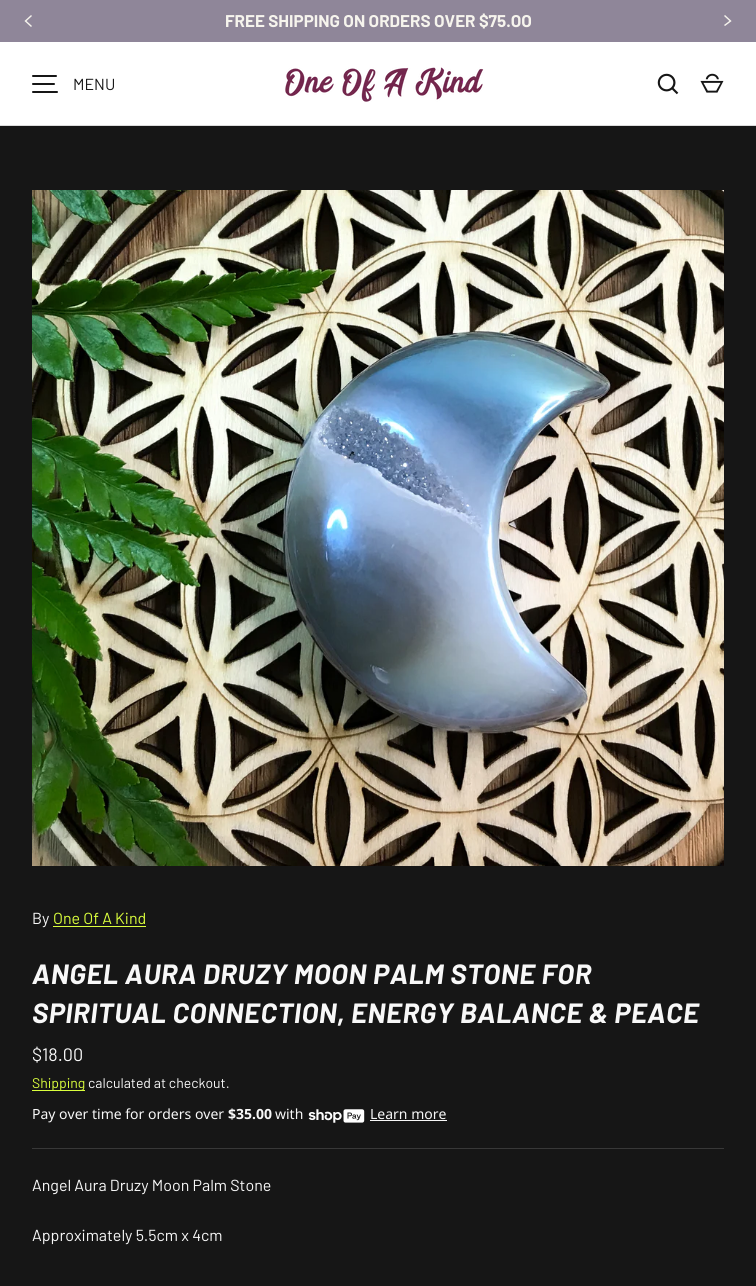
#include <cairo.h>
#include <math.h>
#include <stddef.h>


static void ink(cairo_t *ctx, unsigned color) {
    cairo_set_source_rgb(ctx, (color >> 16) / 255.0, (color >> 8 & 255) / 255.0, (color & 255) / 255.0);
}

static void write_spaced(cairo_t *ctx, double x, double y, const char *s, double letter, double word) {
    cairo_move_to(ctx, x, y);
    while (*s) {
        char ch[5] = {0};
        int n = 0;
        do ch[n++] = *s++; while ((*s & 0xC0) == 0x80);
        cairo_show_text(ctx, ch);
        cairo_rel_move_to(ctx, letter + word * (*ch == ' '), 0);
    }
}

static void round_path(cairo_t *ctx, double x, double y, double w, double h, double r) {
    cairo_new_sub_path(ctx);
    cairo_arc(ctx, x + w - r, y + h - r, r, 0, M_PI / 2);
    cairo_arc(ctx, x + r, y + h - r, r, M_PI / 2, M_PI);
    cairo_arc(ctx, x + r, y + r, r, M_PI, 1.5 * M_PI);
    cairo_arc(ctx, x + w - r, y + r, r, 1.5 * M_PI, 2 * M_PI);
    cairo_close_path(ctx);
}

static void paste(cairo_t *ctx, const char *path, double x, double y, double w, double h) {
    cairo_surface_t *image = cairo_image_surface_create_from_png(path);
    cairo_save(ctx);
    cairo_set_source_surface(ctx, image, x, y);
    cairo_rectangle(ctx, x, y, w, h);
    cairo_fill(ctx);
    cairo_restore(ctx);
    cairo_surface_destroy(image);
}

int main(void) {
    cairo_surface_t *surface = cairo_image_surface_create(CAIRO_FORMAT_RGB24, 756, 1286);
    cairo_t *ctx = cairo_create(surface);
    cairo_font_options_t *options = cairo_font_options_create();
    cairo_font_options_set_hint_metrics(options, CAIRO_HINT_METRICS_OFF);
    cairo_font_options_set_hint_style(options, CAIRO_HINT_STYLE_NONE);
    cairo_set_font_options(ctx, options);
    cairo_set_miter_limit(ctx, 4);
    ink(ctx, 0x161616);
    cairo_paint(ctx);
    ink(ctx, 0x8F8699);
    cairo_rectangle(ctx, 0, 0, 756, 42);
    cairo_fill(ctx);
    cairo_select_font_face(ctx, "Barlow", CAIRO_FONT_SLANT_NORMAL, CAIRO_FONT_WEIGHT_BOLD);
    cairo_set_font_size(ctx, 17);
    ink(ctx, 0xF6F4ED);
    cairo_move_to(ctx, 225, 27);
    cairo_show_text(ctx, "FREE SHIPPING ON ORDERS OVER $75.OO");
    cairo_new_path(ctx);
    cairo_move_to(ctx, 31.5, 15.5);
    cairo_line_to(ctx, 25.5, 21);
    cairo_line_to(ctx, 31.5, 26.5);
    cairo_set_line_width(ctx, 1.4);
    cairo_stroke(ctx);
    cairo_new_path(ctx);
    cairo_move_to(ctx, 724.5, 15.5);
    cairo_line_to(ctx, 730.5, 21);
    cairo_line_to(ctx, 724.5, 25.5);
    cairo_stroke(ctx);
    ink(ctx, 0xFFFFFF);
    cairo_rectangle(ctx, 0, 42, 756, 83);
    cairo_fill(ctx);
    ink(ctx, 0xDCDCDC);
    cairo_rectangle(ctx, 0, 125, 756, 1);
    cairo_fill(ctx);
    ink(ctx, 0x161616);
    round_path(ctx, 32, 75, 25, 2, 1);
    cairo_fill(ctx);
    round_path(ctx, 32, 83, 23, 2, 1);
    cairo_fill(ctx);
    round_path(ctx, 32, 91, 26, 2, 1);
    cairo_fill(ctx);
    cairo_select_font_face(ctx, "Barlow", CAIRO_FONT_SLANT_NORMAL, CAIRO_FONT_WEIGHT_NORMAL);
    cairo_set_font_size(ctx, 16);
    cairo_move_to(ctx, 73, 90);
    cairo_show_text(ctx, "MENU");
    paste(ctx, "media/1.png", 285, 67, 199, 35);
    paste(ctx, "media/2.png", 657, 73, 22, 22);
    paste(ctx, "media/3.png", 700, 73, 24, 20);
    paste(ctx, "media/4.png", 32, 190, 692, 676);
    ink(ctx, 0xF8F8F8);
    cairo_move_to(ctx, 32, 924);
    cairo_show_text(ctx, "By");
    ink(ctx, 0xDBFF3D);
    cairo_move_to(ctx, 53, 924);
    cairo_show_text(ctx, "One Of A Kind");
    cairo_rectangle(ctx, 53, 926, 93, 1);
    cairo_fill(ctx);
    cairo_select_font_face(ctx, "Barlow", CAIRO_FONT_SLANT_ITALIC, CAIRO_FONT_WEIGHT_BOLD);
    cairo_set_font_size(ctx, 27.9);
    ink(ctx, 0xF8F8F8);
    write_spaced(ctx, 32, 984, "ANGEL AURA DRUZY MOON PALM STONE FOR", 0.55, 0);
    write_spaced(ctx, 32, 1023, "SPIRITUAL CONNECTION, ENERGY BALANCE & PEACE", 0.55, 0);
    cairo_select_font_face(ctx, "Barlow", CAIRO_FONT_SLANT_NORMAL, CAIRO_FONT_WEIGHT_NORMAL);
    cairo_set_font_size(ctx, 18);
    cairo_move_to(ctx, 32, 1061);
    cairo_show_text(ctx, "$18.00");
    ink(ctx, 0xDBFF3D);
    cairo_rectangle(ctx, 32, 1090, 53, 1);
    cairo_fill(ctx);
    cairo_set_font_size(ctx, 14);
    cairo_move_to(ctx, 32, 1088);
    cairo_show_text(ctx, "Shipping");
    ink(ctx, 0xF8F8F8);
    cairo_move_to(ctx, 88, 1088);
    cairo_show_text(ctx, "calculated at checkout.");
    cairo_select_font_face(ctx, "Noto Sans", CAIRO_FONT_SLANT_NORMAL, CAIRO_FONT_WEIGHT_NORMAL);
    cairo_move_to(ctx, 32, 1119);
    cairo_show_text(ctx, "Pay over time for orders over");
    cairo_select_font_face(ctx, "Noto Sans", CAIRO_FONT_SLANT_NORMAL, CAIRO_FONT_WEIGHT_BOLD);
    cairo_move_to(ctx, 228, 1119);
    cairo_show_text(ctx, "$35.00");
    cairo_select_font_face(ctx, "Noto Sans", CAIRO_FONT_SLANT_NORMAL, CAIRO_FONT_WEIGHT_NORMAL);
    cairo_move_to(ctx, 275, 1119);
    cairo_show_text(ctx, "with");
    paste(ctx, "media/5.png", 308, 1109, 57, 14);
    cairo_move_to(ctx, 370, 1119);
    cairo_show_text(ctx, "Learn more");
    cairo_rectangle(ctx, 370, 1120, 77, 1);
    cairo_fill(ctx);
    ink(ctx, 0x383838);
    cairo_rectangle(ctx, 32, 1148, 692, 1);
    cairo_fill(ctx);
    cairo_select_font_face(ctx, "Barlow", CAIRO_FONT_SLANT_NORMAL, CAIRO_FONT_WEIGHT_NORMAL);
    cairo_set_font_size(ctx, 16);
    ink(ctx, 0xF8F8F8);
    cairo_move_to(ctx, 32, 1191);
    cairo_show_text(ctx, "Angel Aura Druzy Moon Palm Stone");
    cairo_move_to(ctx, 32, 1241);
    cairo_show_text(ctx, "Approximately 5.5cm x 4cm");
    cairo_surface_write_to_png(surface, "image.png");
    cairo_font_options_destroy(options);
    cairo_destroy(ctx);
    cairo_surface_destroy(surface);
    return 0;
}
